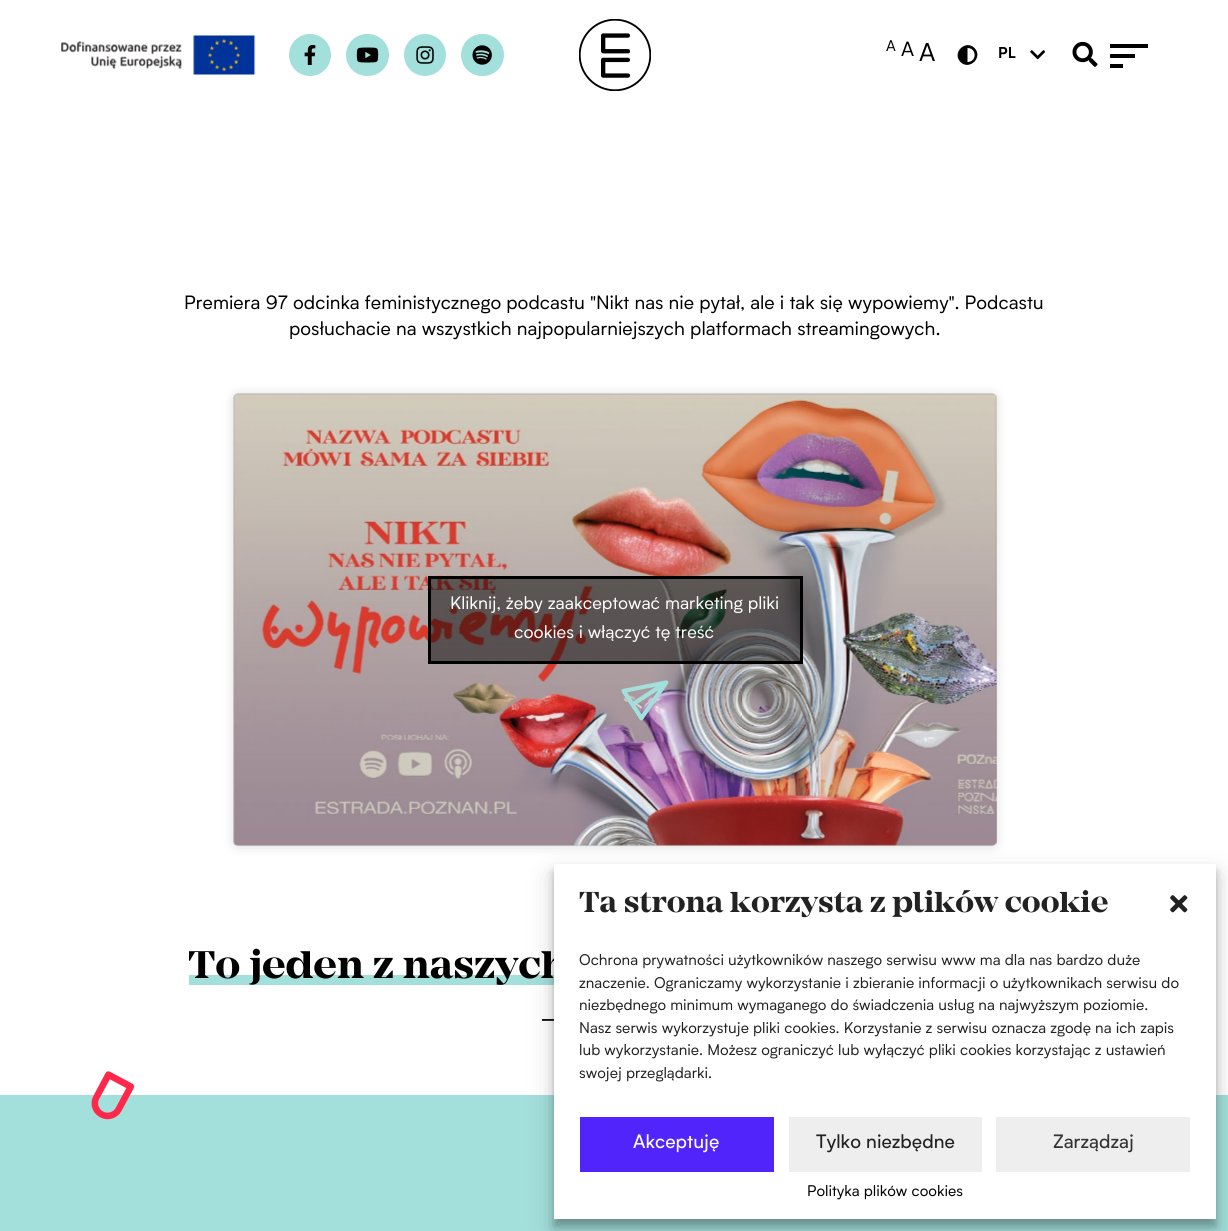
#include <cairo.h>
#include <math.h>
#include <stddef.h>

typedef struct { double x, y; const char *s; } line_t;
typedef struct { double x, y, w, h; unsigned color; } box_t;

static void ink(cairo_t *ctx, unsigned color) {
    cairo_set_source_rgb(ctx, (color >> 16) / 255.0, (color >> 8 & 255) / 255.0, (color & 255) / 255.0);
}

static void round_path(cairo_t *ctx, double x, double y, double w, double h, double r) {
    cairo_new_sub_path(ctx);
    cairo_arc(ctx, x + w - r, y + h - r, r, 0, M_PI / 2);
    cairo_arc(ctx, x + r, y + h - r, r, M_PI / 2, M_PI);
    cairo_arc(ctx, x + r, y + r, r, M_PI, 1.5 * M_PI);
    cairo_arc(ctx, x + w - r, y + r, r, 1.5 * M_PI, 2 * M_PI);
    cairo_close_path(ctx);
}

static void blur_box(cairo_t *ctx, double x, double y, double w, double h, double r, double blur, double alpha) {
    cairo_push_group_with_content(ctx, CAIRO_CONTENT_ALPHA);
    cairo_set_operator(ctx, CAIRO_OPERATOR_SOURCE);
    for (int i = 15; i >= -15 && fmin(w, h) + blur * i / 3 > 0; i -= 2) {
        double e = blur * i / 6;
        cairo_set_source_rgba(ctx, 0, 0, 0, alpha * erfc((i - 1) / 8.5) / 2);
        round_path(ctx, x - e, y - e, w + 2 * e, h + 2 * e, fmax(0, fmin(r + e + blur * .6, fmin(w, h) / 2 + e)));
        cairo_fill(ctx);
    }
    cairo_pattern_t *soft = cairo_pop_group(ctx);
    cairo_mask(ctx, soft);
    cairo_pattern_destroy(soft);
}

static void paste(cairo_t *ctx, const char *path, double x, double y, double w, double h) {
    cairo_surface_t *image = cairo_image_surface_create_from_png(path);
    cairo_save(ctx);
    cairo_set_source_surface(ctx, image, x, y);
    cairo_rectangle(ctx, x, y, w, h);
    cairo_fill(ctx);
    cairo_restore(ctx);
    cairo_surface_destroy(image);
}

int main(void) {
    cairo_surface_t *surface = cairo_image_surface_create(CAIRO_FORMAT_RGB24, 1228, 1231);
    cairo_t *ctx = cairo_create(surface);
    cairo_font_options_t *options = cairo_font_options_create();
    cairo_font_options_set_hint_metrics(options, CAIRO_HINT_METRICS_OFF);
    cairo_font_options_set_hint_style(options, CAIRO_HINT_STYLE_NONE);
    cairo_set_font_options(ctx, options);
    cairo_set_miter_limit(ctx, 4);
    ink(ctx, 0xFFFFFF);
    cairo_paint(ctx);
    paste(ctx, "media/1.png", 61, 35, 195, 40);
    ink(ctx, 0xA3DFDB);
    cairo_arc(ctx, 310, 55, 21, 0, 2 * M_PI);
    cairo_fill(ctx);
    paste(ctx, "media/2.png", 304, 45, 12, 20);
    round_path(ctx, 346, 34, 43, 42, 21);
    cairo_fill(ctx);
    paste(ctx, "media/3.png", 356, 47, 23, 16);
    cairo_arc(ctx, 425, 55, 21, 0, 2 * M_PI);
    cairo_fill(ctx);
    paste(ctx, "media/4.png", 416, 46, 18, 18);
    round_path(ctx, 461, 34, 43, 42, 21);
    cairo_fill(ctx);
    paste(ctx, "media/5.png", 472, 45, 20, 20);
    paste(ctx, "media/6.png", 579, 19, 72, 72);
    cairo_select_font_face(ctx, "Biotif", CAIRO_FONT_SLANT_NORMAL, CAIRO_FONT_WEIGHT_NORMAL);
    cairo_set_font_size(ctx, 15);
    ink(ctx, 0x000000);
    cairo_move_to(ctx, 886, 51);
    cairo_show_text(ctx, "A");
    cairo_set_font_size(ctx, 20);
    cairo_move_to(ctx, 901, 56);
    cairo_show_text(ctx, "A");
    cairo_set_font_size(ctx, 25);
    cairo_move_to(ctx, 919, 61);
    cairo_show_text(ctx, "A");
    cairo_new_path(ctx);
    cairo_move_to(ctx, 960.5, 62);
    cairo_curve_to(ctx, 951.5, 53, 965.5, 39, 974.5, 48);
    cairo_curve_to(ctx, 983.5, 57, 969.5, 71, 960.5, 62);
    cairo_close_path(ctx);
    cairo_move_to(ctx, 967.5, 62);
    cairo_curve_to(ctx, 977, 62, 977, 48, 967.5, 48);
    cairo_close_path(ctx);
    cairo_fill(ctx);
    cairo_select_font_face(ctx, "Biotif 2", CAIRO_FONT_SLANT_NORMAL, CAIRO_FONT_WEIGHT_NORMAL);
    cairo_set_font_size(ctx, 15);
    cairo_move_to(ctx, 998, 58);
    cairo_show_text(ctx, "PL");
    paste(ctx, "media/7.png", 1030, 50, 16, 10);
    paste(ctx, "media/8.png", 1072, 41, 26, 26);
    {
        static const box_t items[] = {
            {1110, 44, 38, 4, 0x000000},
            {1110, 54, 25, 4, 0x000000},
            {1110, 64, 13, 4, 0x000000},
        };
        for (size_t i = 0; i < sizeof items / sizeof *items; i++) {
            ink(ctx, items[i].color);
            cairo_rectangle(ctx, items[i].x, items[i].y, items[i].w, items[i].h);
            cairo_fill(ctx);
        }
    }
    cairo_select_font_face(ctx, "Biotif", CAIRO_FONT_SLANT_NORMAL, CAIRO_FONT_WEIGHT_NORMAL);
    cairo_set_font_size(ctx, 18.75);
    cairo_move_to(ctx, 184, 309);
    cairo_show_text(ctx, "Premiera 97 odcinka feministycznego podcastu \"Nikt nas nie pytał, ale i tak się wypowiemy\". Podcastu");
    cairo_move_to(ctx, 289, 335);
    cairo_show_text(ctx, "posłuchacie na wszystkich najpopularniejszych platformach streamingowych.");
    ink(ctx, 0x000000);
    blur_box(ctx, 234, 395, 762, 451, 4, 6, 0.15);
    blur_box(ctx, 234, 394, 762, 451, 4, 0.5, 0.5);
    paste(ctx, "media/9.png", 233, 393, 764, 453);
    cairo_set_source_rgba(ctx, 0, 0, 0, 0.5);
    cairo_rectangle(ctx, 429.5, 577.5, 372, 85);
    cairo_fill_preserve(ctx);
    ink(ctx, 0x000000);
    cairo_set_line_width(ctx, 3);
    cairo_stroke(ctx);
    cairo_set_font_size(ctx, 17.5);
    ink(ctx, 0xFFFFFF);
    cairo_move_to(ctx, 450, 609);
    cairo_show_text(ctx, "Kliknij, żeby zaakceptować marketing pliki");
    cairo_move_to(ctx, 514, 638);
    cairo_show_text(ctx, "cookies i włączyć tę treść");
    ink(ctx, 0xA3DFDB);
    cairo_rectangle(ctx, 189, 975, 365, 10);
    cairo_fill(ctx);
    cairo_select_font_face(ctx, "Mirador", CAIRO_FONT_SLANT_NORMAL, CAIRO_FONT_WEIGHT_NORMAL);
    cairo_set_font_size(ctx, 40);
    ink(ctx, 0x000000);
    cairo_move_to(ctx, 188, 978);
    cairo_show_text(ctx, "To jeden z naszych");
    cairo_select_font_face(ctx, "Biotif 2", CAIRO_FONT_SLANT_NORMAL, CAIRO_FONT_WEIGHT_NORMAL);
    cairo_set_font_size(ctx, 15);
    cairo_move_to(ctx, 541, 1024);
    cairo_show_text(ctx, "–");
    paste(ctx, "media/10.png", 621, 680, 48, 41);
    ink(ctx, 0xA3DFDB);
    cairo_rectangle(ctx, 0, 1095, 1228, 136);
    cairo_fill(ctx);
    paste(ctx, "media/11.png", 91, 1071, 44, 49);
    ink(ctx, 0x000000);
    blur_box(ctx, 554, 871, 662, 355, 0, 4, 0.23);
    blur_box(ctx, 554, 876, 662, 355, 0, 12.5, 0.19);
    ink(ctx, 0xFFFFFF);
    cairo_rectangle(ctx, 554, 864, 662, 355);
    cairo_fill(ctx);
    cairo_select_font_face(ctx, "Mirador", CAIRO_FONT_SLANT_NORMAL, CAIRO_FONT_WEIGHT_NORMAL);
    cairo_set_font_size(ctx, 30);
    ink(ctx, 0x222222);
    cairo_move_to(ctx, 579, 912);
    cairo_show_text(ctx, "Ta strona korzysta z plików cookie");
    paste(ctx, "media/12.png", 1170, 895, 18, 18);
    cairo_select_font_face(ctx, "Biotif", CAIRO_FONT_SLANT_NORMAL, CAIRO_FONT_WEIGHT_NORMAL);
    cairo_set_font_size(ctx, 15);
    {
        static const line_t items[] = {
            {579, 965, "Ochrona prywatności użytkowników naszego serwisu www ma dla nas bardzo duże"},
            {579, 988, "znaczenie. Ograniczamy wykorzystanie i zbieranie informacji o użytkownikach serwisu do"},
            {579, 1010, "niezbędnego minimum wymaganego do świadczenia usług na najwyższym poziomie."},
            {579, 1033, "Nasz serwis wykorzystuje pliki cookies. Korzystanie z serwisu oznacza zgodę na ich zapis"},
            {579, 1055, "lub wykorzystanie. Możesz ograniczyć lub wyłączyć pliki cookies korzystając z ustawień"},
            {579, 1078, "swojej przeglądarki."},
        };
        for (size_t i = 0; i < sizeof items / sizeof *items; i++) {
            cairo_move_to(ctx, items[i].x, items[i].y);
            cairo_show_text(ctx, items[i].s);
        }
    }
    ink(ctx, 0x5124FB);
    cairo_rectangle(ctx, 580, 1117, 194, 55);
    cairo_fill(ctx);
    cairo_select_font_face(ctx, "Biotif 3", CAIRO_FONT_SLANT_NORMAL, CAIRO_FONT_WEIGHT_NORMAL);
    cairo_set_font_size(ctx, 18.75);
    ink(ctx, 0xFFFFFF);
    cairo_move_to(ctx, 633, 1148);
    cairo_show_text(ctx, "Akceptuję");
    ink(ctx, 0xEEEEEE);
    cairo_rectangle(ctx, 789, 1117, 193, 55);
    cairo_fill(ctx);
    ink(ctx, 0x222222);
    cairo_move_to(ctx, 816, 1148);
    cairo_show_text(ctx, "Tylko niezbędne");
    ink(ctx, 0xEEEEEE);
    cairo_rectangle(ctx, 996, 1117, 194, 55);
    cairo_fill(ctx);
    ink(ctx, 0x333333);
    cairo_move_to(ctx, 1053, 1148);
    cairo_show_text(ctx, "Zarządzaj");
    cairo_select_font_face(ctx, "Biotif", CAIRO_FONT_SLANT_NORMAL, CAIRO_FONT_WEIGHT_NORMAL);
    cairo_set_font_size(ctx, 15);
    ink(ctx, 0x000000);
    cairo_move_to(ctx, 807, 1196);
    cairo_show_text(ctx, "Polityka plików cookies");
    cairo_surface_write_to_png(surface, "image.png");
    cairo_font_options_destroy(options);
    cairo_destroy(ctx);
    cairo_surface_destroy(surface);
    return 0;
}
